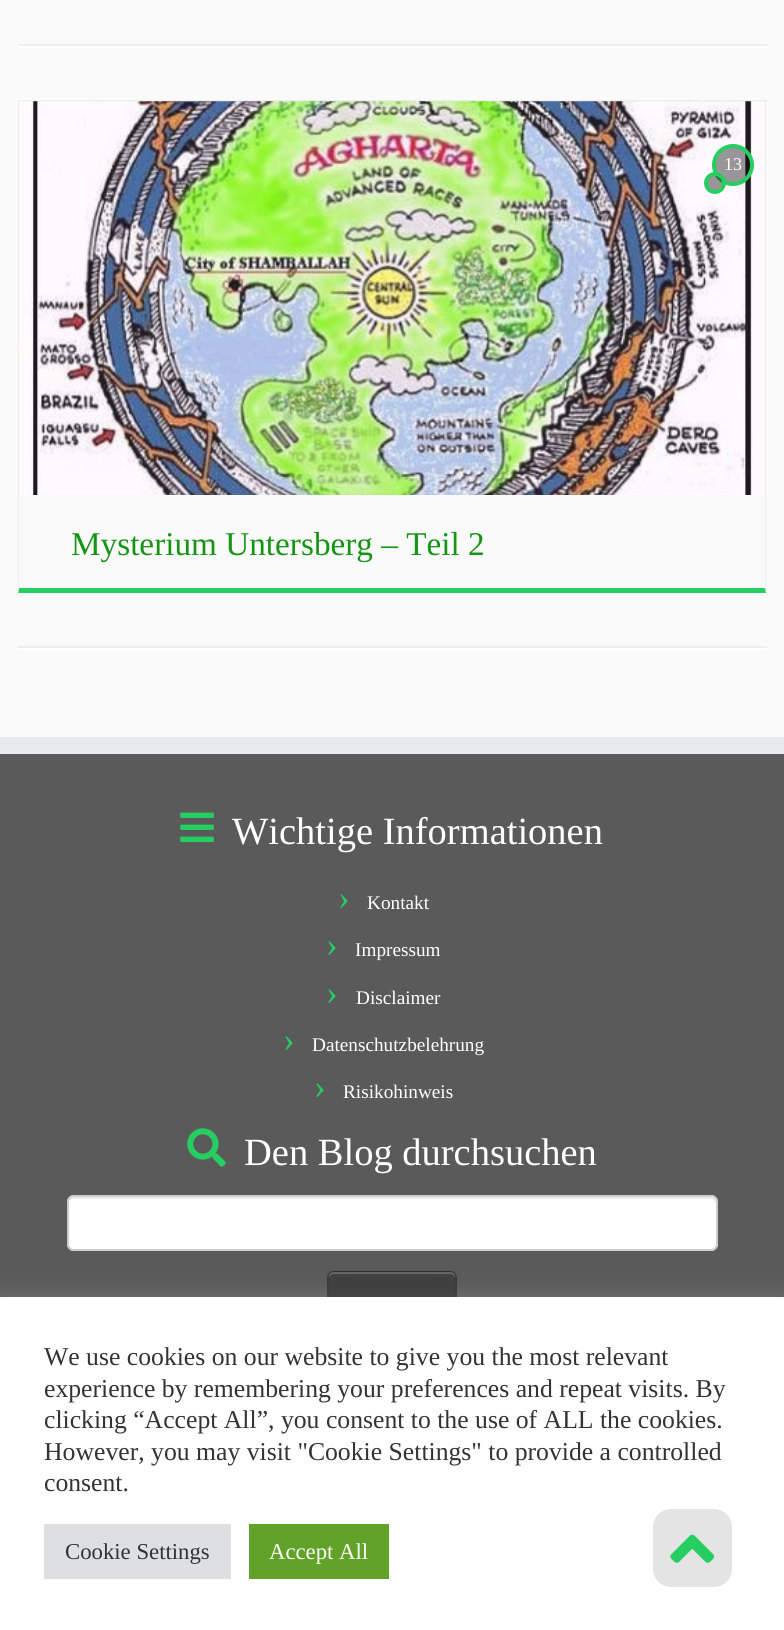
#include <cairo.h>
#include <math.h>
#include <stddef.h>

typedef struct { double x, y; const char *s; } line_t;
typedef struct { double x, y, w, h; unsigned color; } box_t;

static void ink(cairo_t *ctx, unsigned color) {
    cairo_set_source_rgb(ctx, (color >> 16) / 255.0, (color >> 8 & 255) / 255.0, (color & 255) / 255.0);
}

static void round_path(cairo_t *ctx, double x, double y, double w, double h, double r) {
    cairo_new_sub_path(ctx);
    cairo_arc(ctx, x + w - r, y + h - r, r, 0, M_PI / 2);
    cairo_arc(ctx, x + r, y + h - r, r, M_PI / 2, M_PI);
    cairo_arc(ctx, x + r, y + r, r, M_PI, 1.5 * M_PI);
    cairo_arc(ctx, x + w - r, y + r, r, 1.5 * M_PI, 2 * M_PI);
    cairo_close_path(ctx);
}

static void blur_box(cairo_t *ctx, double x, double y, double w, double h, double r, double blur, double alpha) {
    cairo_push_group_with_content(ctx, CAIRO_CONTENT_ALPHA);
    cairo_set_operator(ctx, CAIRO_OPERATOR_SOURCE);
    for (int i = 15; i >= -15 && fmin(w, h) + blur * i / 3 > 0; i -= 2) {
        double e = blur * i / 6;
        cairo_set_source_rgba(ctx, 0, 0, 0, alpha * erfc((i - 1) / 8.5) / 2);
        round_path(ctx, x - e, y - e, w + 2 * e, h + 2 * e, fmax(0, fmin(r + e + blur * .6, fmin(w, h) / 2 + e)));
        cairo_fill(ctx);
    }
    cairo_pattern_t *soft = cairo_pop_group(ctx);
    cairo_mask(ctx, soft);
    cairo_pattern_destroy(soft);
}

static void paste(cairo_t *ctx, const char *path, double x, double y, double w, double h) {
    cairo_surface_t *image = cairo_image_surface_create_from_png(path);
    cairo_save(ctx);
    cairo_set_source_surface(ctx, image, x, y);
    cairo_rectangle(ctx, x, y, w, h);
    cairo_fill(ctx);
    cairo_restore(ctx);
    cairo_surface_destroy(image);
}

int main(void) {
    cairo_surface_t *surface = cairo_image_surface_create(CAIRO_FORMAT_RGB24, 784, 1630);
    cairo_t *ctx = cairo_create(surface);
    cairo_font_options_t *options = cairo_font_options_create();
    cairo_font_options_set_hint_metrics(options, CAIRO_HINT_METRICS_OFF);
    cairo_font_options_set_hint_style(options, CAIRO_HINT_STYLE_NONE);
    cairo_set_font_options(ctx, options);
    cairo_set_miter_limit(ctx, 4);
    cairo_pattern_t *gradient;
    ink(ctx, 0xFAFAFA);
    cairo_paint(ctx);
    {
        static const box_t items[] = {
            {18, 44, 749, 2, 0xEEEEEE},
            {18, 46, 749, 2, 0xFFFFFF},
            {18, 100, 749, 2, 0xEEEEEE},
        };
        for (size_t i = 0; i < sizeof items / sizeof *items; i++) {
            ink(ctx, items[i].color);
            cairo_rectangle(ctx, items[i].x, items[i].y, items[i].w, items[i].h);
            cairo_fill(ctx);
        }
    }
    cairo_new_path(ctx);
    cairo_move_to(ctx, 766, 100);
    cairo_line_to(ctx, 766, 593);
    cairo_line_to(ctx, 765, 588);
    cairo_line_to(ctx, 765, 102);
    cairo_close_path(ctx);
    cairo_fill(ctx);
    ink(ctx, 0x26CE61);
    cairo_new_path(ctx);
    cairo_move_to(ctx, 766, 593);
    cairo_line_to(ctx, 18, 593);
    cairo_line_to(ctx, 19, 588);
    cairo_line_to(ctx, 765, 588);
    cairo_close_path(ctx);
    cairo_fill(ctx);
    ink(ctx, 0xEEEEEE);
    cairo_new_path(ctx);
    cairo_move_to(ctx, 18, 593);
    cairo_line_to(ctx, 18, 100);
    cairo_line_to(ctx, 19, 102);
    cairo_line_to(ctx, 19, 588);
    cairo_close_path(ctx);
    cairo_fill(ctx);
    paste(ctx, "media/1.png", 19, 101, 746, 394);
    cairo_set_source_rgba(ctx, 0, 0, 0, 0.4);
    cairo_arc(ctx, 733, 165, 19, 0, 2 * M_PI);
    cairo_fill_preserve(ctx);
    ink(ctx, 0x26CE61);
    cairo_set_line_width(ctx, 4);
    cairo_stroke(ctx);
    cairo_select_font_face(ctx, "Liberation Serif", CAIRO_FONT_SLANT_NORMAL, CAIRO_FONT_WEIGHT_NORMAL);
    cairo_set_font_size(ctx, 18);
    ink(ctx, 0xFFFFFF);
    cairo_move_to(ctx, 724, 170);
    cairo_show_text(ctx, "13");
    cairo_set_source_rgba(ctx, 0, 0, 0, 0.4);
    cairo_new_path(ctx);
    cairo_arc(ctx, 715, 183, 9, 0, 2 * M_PI);
    cairo_fill_preserve(ctx);
    ink(ctx, 0x26CE61);
    cairo_stroke(ctx);
    cairo_set_font_size(ctx, 33.25);
    ink(ctx, 0x159415);
    cairo_move_to(ctx, 71, 555);
    cairo_show_text(ctx, "Mysterium Untersberg – Teil 2");
    {
        static const box_t items[] = {
            {18, 646, 749, 2, 0xEEEEEE},
            {18, 648, 749, 2, 0xFFFFFF},
            {0, 754, 784, 543, 0x5A5A5A},
            {0, 737, 784, 17, 0xE9EAEE},
        };
        for (size_t i = 0; i < sizeof items / sizeof *items; i++) {
            ink(ctx, items[i].color);
            cairo_rectangle(ctx, items[i].x, items[i].y, items[i].w, items[i].h);
            cairo_fill(ctx);
        }
    }
    paste(ctx, "media/2.png", 180, 812, 34, 31);
    cairo_set_font_size(ctx, 38.5);
    ink(ctx, 0xFFFFFF);
    cairo_move_to(ctx, 232, 844);
    cairo_show_text(ctx, "Wichtige Informationen");
    cairo_set_font_size(ctx, 35);
    ink(ctx, 0x26CE61);
    cairo_move_to(ctx, 338, 909);
    cairo_show_text(ctx, "›");
    cairo_set_font_size(ctx, 19.25);
    ink(ctx, 0xFFFFFF);
    cairo_move_to(ctx, 367, 909);
    cairo_show_text(ctx, "Kontakt");
    cairo_set_font_size(ctx, 35);
    ink(ctx, 0x26CE61);
    cairo_move_to(ctx, 326, 956);
    cairo_show_text(ctx, "›");
    cairo_set_font_size(ctx, 19.25);
    ink(ctx, 0xFFFFFF);
    cairo_move_to(ctx, 355, 956);
    cairo_show_text(ctx, "Impressum");
    cairo_set_font_size(ctx, 35);
    ink(ctx, 0x26CE61);
    cairo_move_to(ctx, 326, 1004);
    cairo_show_text(ctx, "›");
    cairo_set_font_size(ctx, 19.25);
    ink(ctx, 0xFFFFFF);
    cairo_move_to(ctx, 356, 1004);
    cairo_show_text(ctx, "Disclaimer");
    cairo_set_font_size(ctx, 35);
    ink(ctx, 0x26CE61);
    cairo_move_to(ctx, 283, 1051);
    cairo_show_text(ctx, "›");
    cairo_set_font_size(ctx, 19.25);
    ink(ctx, 0xFFFFFF);
    cairo_move_to(ctx, 312, 1051);
    cairo_show_text(ctx, "Datenschutzbelehrung");
    cairo_set_font_size(ctx, 35);
    ink(ctx, 0x26CE61);
    cairo_move_to(ctx, 314, 1098);
    cairo_show_text(ctx, "›");
    cairo_set_font_size(ctx, 19.25);
    ink(ctx, 0xFFFFFF);
    cairo_move_to(ctx, 343, 1098);
    cairo_show_text(ctx, "Risikohinweis");
    paste(ctx, "media/3.png", 187, 1128, 39, 39);
    cairo_set_font_size(ctx, 38.5);
    cairo_move_to(ctx, 244, 1165);
    cairo_show_text(ctx, "Den Blog durchsuchen");
    round_path(ctx, 67, 1195, 651, 56, 7);
    cairo_fill(ctx);
    ink(ctx, 0xECECEC);
    cairo_new_path(ctx);
    cairo_move_to(ctx, 74, 1199);
    cairo_line_to(ctx, 710, 1199);
    cairo_curve_to(ctx, 713, 1199, 716, 1201, 716, 1204);
    cairo_line_to(ctx, 716, 1202);
    cairo_curve_to(ctx, 716, 1199, 714, 1197, 711, 1197);
    cairo_line_to(ctx, 73, 1197);
    cairo_curve_to(ctx, 70, 1197, 68, 1199, 68, 1202);
    cairo_line_to(ctx, 68, 1204);
    cairo_curve_to(ctx, 68, 1201, 71, 1199, 74, 1199);
    cairo_close_path(ctx);
    cairo_fill(ctx);
    round_path(ctx, 68, 1196, 649, 54, 6);
    ink(ctx, 0xCCCCCC);
    cairo_set_line_width(ctx, 2);
    cairo_stroke(ctx);
    ink(ctx, 0x363636);
    round_path(ctx, 327, 1271, 130, 52, 7);
    cairo_fill(ctx);
    cairo_save(ctx);
    round_path(ctx, 327, 1271, 130, 52, 7);
    cairo_clip(ctx);
    gradient = cairo_pattern_create_linear(392, 1272, 392, 1321);
    cairo_pattern_add_color_stop_rgba(gradient, 0, 0.267, 0.267, 0.267, 1);
    cairo_pattern_add_color_stop_rgba(gradient, 1, 0.133, 0.133, 0.133, 1);
    cairo_set_source(ctx, gradient);
    cairo_pattern_destroy(gradient);
    cairo_rectangle(ctx, 327, 1272, 130, 25);
    cairo_fill(ctx);
    cairo_restore(ctx);
    cairo_set_source_rgba(ctx, 1, 1, 1, 0.2);
    cairo_new_path(ctx);
    cairo_move_to(ctx, 334, 1274);
    cairo_line_to(ctx, 450, 1274);
    cairo_curve_to(ctx, 453, 1274, 455, 1276, 455, 1279);
    cairo_line_to(ctx, 455, 1277);
    cairo_curve_to(ctx, 455, 1274, 453, 1272, 450, 1272);
    cairo_line_to(ctx, 334, 1272);
    cairo_curve_to(ctx, 331, 1272, 329, 1274, 329, 1277);
    cairo_line_to(ctx, 329, 1279);
    cairo_curve_to(ctx, 329, 1276, 331, 1274, 334, 1274);
    cairo_close_path(ctx);
    cairo_fill(ctx);
    cairo_new_path(ctx);
    cairo_move_to(ctx, 330, 1320.5);
    cairo_curve_to(ctx, 327, 1317.5, 328, 1313, 328, 1309.5);
    cairo_line_to(ctx, 328, 1297);
    cairo_curve_to(ctx, 328, 1268, 324, 1271.5, 353.5, 1271.5);
    cairo_line_to(ctx, 430.5, 1271.5);
    cairo_curve_to(ctx, 460, 1271.5, 456, 1268, 456, 1297);
    cairo_line_to(ctx, 456, 1309.5);
    cairo_curve_to(ctx, 456, 1313, 457, 1317.5, 454, 1320.5);
    cairo_set_source_rgba(ctx, 0, 0, 0, 0.1);
    cairo_set_line_width(ctx, 1.8);
    cairo_stroke(ctx);
    ink(ctx, 0xACABAB);
    blur_box(ctx, 0, 1295, 784, 334, 0, 9, 0.3);
    ink(ctx, 0xFFFFFF);
    cairo_rectangle(ctx, 0, 1297, 784, 333);
    cairo_fill(ctx);
    cairo_set_font_size(ctx, 25.7);
    ink(ctx, 0x333333);
    {
        static const line_t items[] = {
            {44, 1365, "We use cookies on our website to give you the most relevant"},
            {44, 1397, "experience by remembering your preferences and repeat visits. By"},
            {44, 1428, "clicking “Accept All”, you consent to the use of ALL the cookies."},
            {44, 1460, "However, you may visit \"Cookie Settings\" to provide a controlled"},
            {44, 1491, "consent."},
        };
        for (size_t i = 0; i < sizeof items / sizeof *items; i++) {
            cairo_move_to(ctx, items[i].x, items[i].y);
            cairo_show_text(ctx, items[i].s);
        }
    }
    ink(ctx, 0xDEDFE0);
    cairo_rectangle(ctx, 44, 1524, 187, 55);
    cairo_fill(ctx);
    cairo_set_font_size(ctx, 22.75);
    ink(ctx, 0x333333);
    cairo_move_to(ctx, 65, 1559);
    cairo_show_text(ctx, "Cookie Settings");
    ink(ctx, 0x61A229);
    cairo_rectangle(ctx, 249, 1524, 140, 55);
    cairo_fill(ctx);
    ink(ctx, 0xFFFFFF);
    cairo_move_to(ctx, 269, 1559);
    cairo_show_text(ctx, "Accept All");
    ink(ctx, 0xE4E4E4);
    round_path(ctx, 653, 1509, 79, 78, 18);
    cairo_fill(ctx);
    paste(ctx, "media/4.png", 670, 1534, 45, 29);
    cairo_surface_write_to_png(surface, "image.png");
    cairo_font_options_destroy(options);
    cairo_destroy(ctx);
    cairo_surface_destroy(surface);
    return 0;
}
